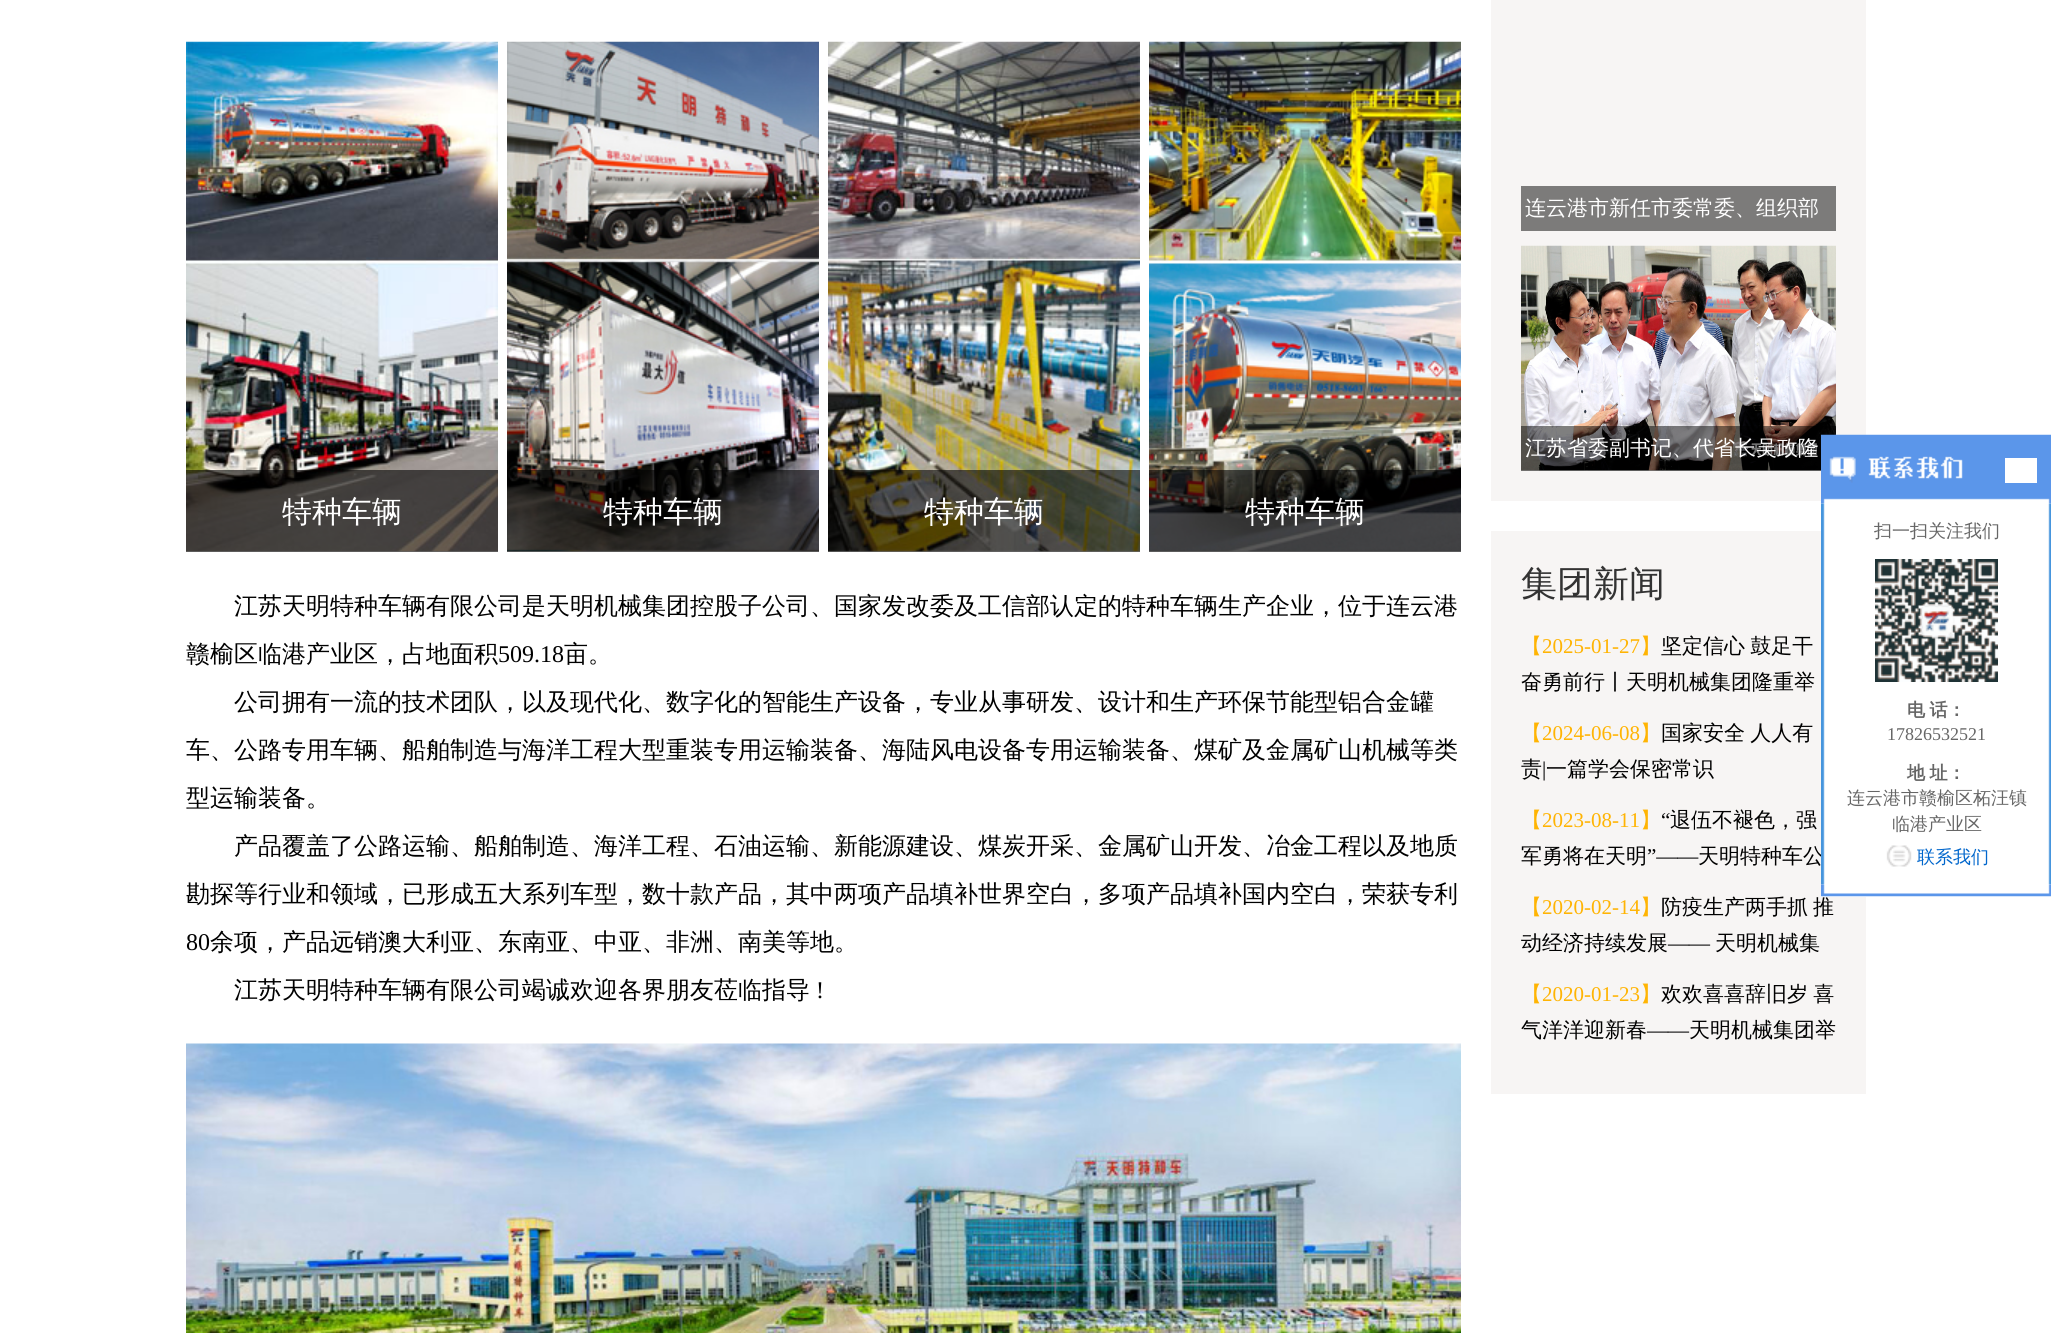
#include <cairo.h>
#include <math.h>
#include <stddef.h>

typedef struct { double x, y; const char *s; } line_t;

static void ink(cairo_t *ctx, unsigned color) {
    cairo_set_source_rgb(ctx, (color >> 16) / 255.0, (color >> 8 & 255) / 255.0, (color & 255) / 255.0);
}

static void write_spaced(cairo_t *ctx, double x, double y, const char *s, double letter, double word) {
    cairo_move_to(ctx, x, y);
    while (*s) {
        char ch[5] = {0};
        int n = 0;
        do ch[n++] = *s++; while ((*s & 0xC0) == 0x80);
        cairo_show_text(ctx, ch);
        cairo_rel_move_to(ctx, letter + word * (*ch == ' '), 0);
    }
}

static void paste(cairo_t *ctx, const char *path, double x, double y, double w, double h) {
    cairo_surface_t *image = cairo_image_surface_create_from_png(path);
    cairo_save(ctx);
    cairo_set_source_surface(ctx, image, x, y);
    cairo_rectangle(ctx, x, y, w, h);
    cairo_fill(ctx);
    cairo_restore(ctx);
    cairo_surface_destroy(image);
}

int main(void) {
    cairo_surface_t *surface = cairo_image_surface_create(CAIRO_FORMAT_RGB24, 2051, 1333);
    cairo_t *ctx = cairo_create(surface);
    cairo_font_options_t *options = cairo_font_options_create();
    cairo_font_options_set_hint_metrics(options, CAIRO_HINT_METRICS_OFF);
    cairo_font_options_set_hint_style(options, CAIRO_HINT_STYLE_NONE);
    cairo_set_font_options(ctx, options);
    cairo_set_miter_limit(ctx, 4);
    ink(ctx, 0xFFFFFF);
    cairo_paint(ctx);
    paste(ctx, "media/1.png", 186, 41, 312, 511);
    cairo_set_source_rgba(ctx, 0, 0, 0, 0.6);
    cairo_rectangle(ctx, 186, 470, 312, 82);
    cairo_fill(ctx);
    cairo_select_font_face(ctx, "WenQuanYi Zen Hei Medium", CAIRO_FONT_SLANT_NORMAL, CAIRO_FONT_WEIGHT_NORMAL);
    cairo_set_font_size(ctx, 30);
    ink(ctx, 0xFFFFFF);
    cairo_move_to(ctx, 282, 522);
    cairo_show_text(ctx, "特种车辆");
    paste(ctx, "media/2.png", 507, 41, 312, 511);
    cairo_set_source_rgba(ctx, 0, 0, 0, 0.6);
    cairo_rectangle(ctx, 507, 470, 312, 82);
    cairo_fill(ctx);
    ink(ctx, 0xFFFFFF);
    cairo_move_to(ctx, 603, 522);
    cairo_show_text(ctx, "特种车辆");
    paste(ctx, "media/3.png", 828, 41, 312, 511);
    cairo_set_source_rgba(ctx, 0, 0, 0, 0.6);
    cairo_rectangle(ctx, 828, 470, 312, 82);
    cairo_fill(ctx);
    ink(ctx, 0xFFFFFF);
    cairo_move_to(ctx, 924, 522);
    cairo_show_text(ctx, "特种车辆");
    paste(ctx, "media/4.png", 1149, 41, 312, 511);
    cairo_set_source_rgba(ctx, 0, 0, 0, 0.6);
    cairo_rectangle(ctx, 1149, 470, 312, 82);
    cairo_fill(ctx);
    ink(ctx, 0xFFFFFF);
    cairo_move_to(ctx, 1245, 522);
    cairo_show_text(ctx, "特种车辆");
    cairo_set_font_size(ctx, 24);
    ink(ctx, 0x000000);
    cairo_move_to(ctx, 234, 614);
    cairo_show_text(ctx, "江苏天明特种车辆有限公司是天明机械集团控股子公司、国家发改委及工信部认定的特种车辆生产企业，位于连云港");
    cairo_move_to(ctx, 186, 662);
    cairo_show_text(ctx, "赣榆区临港产业区，占地面积");
    cairo_select_font_face(ctx, "Liberation Serif", CAIRO_FONT_SLANT_NORMAL, CAIRO_FONT_WEIGHT_NORMAL);
    cairo_move_to(ctx, 498, 662);
    cairo_show_text(ctx, "509.18");
    cairo_select_font_face(ctx, "WenQuanYi Zen Hei Medium", CAIRO_FONT_SLANT_NORMAL, CAIRO_FONT_WEIGHT_NORMAL);
    {
        static const line_t items[] = {
            {564, 662, "亩。"},
            {234, 710, "公司拥有一流的技术团队，以及现代化、数字化的智能生产设备，专业从事研发、设计和生产环保节能型铝合金罐"},
            {186, 758, "车、公路专用车辆、船舶制造与海洋工程大型重装专用运输装备、海陆风电设备专用运输装备、煤矿及金属矿山机械等类"},
            {186, 806, "型运输装备。"},
            {234, 854, "产品覆盖了公路运输、船舶制造、海洋工程、石油运输、新能源建设、煤炭开采、金属矿山开发、冶金工程以及地质"},
            {186, 902, "勘探等行业和领域，已形成五大系列车型，数十款产品，其中两项产品填补世界空白，多项产品填补国内空白，荣获专利"},
        };
        for (size_t i = 0; i < sizeof items / sizeof *items; i++) {
            cairo_move_to(ctx, items[i].x, items[i].y);
            cairo_show_text(ctx, items[i].s);
        }
    }
    cairo_select_font_face(ctx, "Liberation Serif", CAIRO_FONT_SLANT_NORMAL, CAIRO_FONT_WEIGHT_NORMAL);
    cairo_move_to(ctx, 186, 950);
    cairo_show_text(ctx, "80");
    cairo_select_font_face(ctx, "WenQuanYi Zen Hei Medium", CAIRO_FONT_SLANT_NORMAL, CAIRO_FONT_WEIGHT_NORMAL);
    cairo_move_to(ctx, 210, 950);
    cairo_show_text(ctx, "余项，产品远销澳大利亚、东南亚、中亚、非洲、南美等地。");
    cairo_move_to(ctx, 234, 998);
    cairo_show_text(ctx, "江苏天明特种车辆有限公司竭诚欢迎各界朋友莅临指导");
    cairo_select_font_face(ctx, "Liberation Serif", CAIRO_FONT_SLANT_NORMAL, CAIRO_FONT_WEIGHT_NORMAL);
    cairo_move_to(ctx, 816, 998);
    cairo_show_text(ctx, "!");
    paste(ctx, "media/5.png", 186, 1043, 1275, 290);
    ink(ctx, 0xF7F5F4);
    cairo_rectangle(ctx, 1491, 0, 375, 501);
    cairo_fill(ctx);
    ink(ctx, 0x7C7B7A);
    cairo_rectangle(ctx, 1521, 186, 315, 45);
    cairo_fill(ctx);
    cairo_select_font_face(ctx, "WenQuanYi Zen Hei Medium", CAIRO_FONT_SLANT_NORMAL, CAIRO_FONT_WEIGHT_NORMAL);
    cairo_set_font_size(ctx, 21);
    ink(ctx, 0xFFFFFF);
    cairo_move_to(ctx, 1525, 215);
    cairo_show_text(ctx, "连云港市新任市委常委、组织部");
    paste(ctx, "media/6.png", 1521, 245, 315, 226);
    cairo_set_source_rgba(ctx, 0, 0, 0, 0.5);
    cairo_rectangle(ctx, 1521, 426, 315, 45);
    cairo_fill(ctx);
    ink(ctx, 0xFFFFFF);
    cairo_move_to(ctx, 1525, 455);
    cairo_show_text(ctx, "江苏省委副书记、代省长吴政隆");
    ink(ctx, 0xF7F5F4);
    cairo_rectangle(ctx, 1491, 531, 375, 563);
    cairo_fill(ctx);
    cairo_set_font_size(ctx, 36);
    ink(ctx, 0x333333);
    cairo_move_to(ctx, 1521, 596);
    cairo_show_text(ctx, "集团新闻");
    cairo_set_font_size(ctx, 21);
    ink(ctx, 0xFFB403);
    cairo_move_to(ctx, 1521, 653);
    cairo_show_text(ctx, "【");
    cairo_select_font_face(ctx, "Liberation Serif", CAIRO_FONT_SLANT_NORMAL, CAIRO_FONT_WEIGHT_NORMAL);
    cairo_move_to(ctx, 1542, 653);
    cairo_show_text(ctx, "2025-01-27");
    cairo_select_font_face(ctx, "WenQuanYi Zen Hei Medium", CAIRO_FONT_SLANT_NORMAL, CAIRO_FONT_WEIGHT_NORMAL);
    cairo_move_to(ctx, 1640, 653);
    cairo_show_text(ctx, "】");
    ink(ctx, 0x000000);
    write_spaced(ctx, 1661, 653, "坚定信心 鼓足干", 0, -1);
    cairo_move_to(ctx, 1521, 689);
    cairo_show_text(ctx, "奋勇前行丨天明机械集团隆重举");
    ink(ctx, 0xFFB403);
    cairo_move_to(ctx, 1521, 740);
    cairo_show_text(ctx, "【");
    cairo_select_font_face(ctx, "Liberation Serif", CAIRO_FONT_SLANT_NORMAL, CAIRO_FONT_WEIGHT_NORMAL);
    cairo_move_to(ctx, 1542, 740);
    cairo_show_text(ctx, "2024-06-08");
    cairo_select_font_face(ctx, "WenQuanYi Zen Hei Medium", CAIRO_FONT_SLANT_NORMAL, CAIRO_FONT_WEIGHT_NORMAL);
    cairo_move_to(ctx, 1640, 740);
    cairo_show_text(ctx, "】");
    ink(ctx, 0x000000);
    write_spaced(ctx, 1661, 740, "国家安全 人人有", 0, -1);
    cairo_move_to(ctx, 1521, 776);
    cairo_show_text(ctx, "责");
    cairo_select_font_face(ctx, "Liberation Serif", CAIRO_FONT_SLANT_NORMAL, CAIRO_FONT_WEIGHT_NORMAL);
    cairo_move_to(ctx, 1542, 776);
    cairo_show_text(ctx, "|");
    cairo_select_font_face(ctx, "WenQuanYi Zen Hei Medium", CAIRO_FONT_SLANT_NORMAL, CAIRO_FONT_WEIGHT_NORMAL);
    cairo_move_to(ctx, 1546, 776);
    cairo_show_text(ctx, "一篇学会保密常识");
    ink(ctx, 0xFFB403);
    cairo_move_to(ctx, 1521, 827);
    cairo_show_text(ctx, "【");
    cairo_select_font_face(ctx, "Liberation Serif", CAIRO_FONT_SLANT_NORMAL, CAIRO_FONT_WEIGHT_NORMAL);
    cairo_move_to(ctx, 1542, 827);
    cairo_show_text(ctx, "2023-08-11");
    cairo_select_font_face(ctx, "WenQuanYi Zen Hei Medium", CAIRO_FONT_SLANT_NORMAL, CAIRO_FONT_WEIGHT_NORMAL);
    cairo_move_to(ctx, 1640, 827);
    cairo_show_text(ctx, "】");
    cairo_select_font_face(ctx, "Liberation Serif", CAIRO_FONT_SLANT_NORMAL, CAIRO_FONT_WEIGHT_NORMAL);
    ink(ctx, 0x000000);
    cairo_move_to(ctx, 1661, 827);
    cairo_show_text(ctx, "“");
    cairo_select_font_face(ctx, "WenQuanYi Zen Hei Medium", CAIRO_FONT_SLANT_NORMAL, CAIRO_FONT_WEIGHT_NORMAL);
    cairo_move_to(ctx, 1670, 827);
    cairo_show_text(ctx, "退伍不褪色，强");
    cairo_move_to(ctx, 1521, 863);
    cairo_show_text(ctx, "军勇将在天明");
    cairo_select_font_face(ctx, "Liberation Serif", CAIRO_FONT_SLANT_NORMAL, CAIRO_FONT_WEIGHT_NORMAL);
    cairo_move_to(ctx, 1647, 863);
    cairo_show_text(ctx, "”——");
    cairo_select_font_face(ctx, "WenQuanYi Zen Hei Medium", CAIRO_FONT_SLANT_NORMAL, CAIRO_FONT_WEIGHT_NORMAL);
    cairo_move_to(ctx, 1698, 863);
    cairo_show_text(ctx, "天明特种车公");
    ink(ctx, 0xFFB403);
    cairo_move_to(ctx, 1521, 914);
    cairo_show_text(ctx, "【");
    cairo_select_font_face(ctx, "Liberation Serif", CAIRO_FONT_SLANT_NORMAL, CAIRO_FONT_WEIGHT_NORMAL);
    cairo_move_to(ctx, 1542, 914);
    cairo_show_text(ctx, "2020-02-14");
    cairo_select_font_face(ctx, "WenQuanYi Zen Hei Medium", CAIRO_FONT_SLANT_NORMAL, CAIRO_FONT_WEIGHT_NORMAL);
    cairo_move_to(ctx, 1640, 914);
    cairo_show_text(ctx, "】");
    ink(ctx, 0x000000);
    {
        static const line_t items[] = {
            {1661, 914, "防疫生产两手抓"},
            {1813, 914, "推"},
            {1521, 950, "动经济持续发展"},
        };
        for (size_t i = 0; i < sizeof items / sizeof *items; i++) {
            cairo_move_to(ctx, items[i].x, items[i].y);
            cairo_show_text(ctx, items[i].s);
        }
    }
    cairo_select_font_face(ctx, "Liberation Serif", CAIRO_FONT_SLANT_NORMAL, CAIRO_FONT_WEIGHT_NORMAL);
    cairo_move_to(ctx, 1668, 950);
    cairo_show_text(ctx, "——");
    cairo_select_font_face(ctx, "WenQuanYi Zen Hei Medium", CAIRO_FONT_SLANT_NORMAL, CAIRO_FONT_WEIGHT_NORMAL);
    cairo_move_to(ctx, 1715, 950);
    cairo_show_text(ctx, "天明机械集");
    ink(ctx, 0xFFB403);
    cairo_move_to(ctx, 1521, 1001);
    cairo_show_text(ctx, "【");
    cairo_select_font_face(ctx, "Liberation Serif", CAIRO_FONT_SLANT_NORMAL, CAIRO_FONT_WEIGHT_NORMAL);
    cairo_move_to(ctx, 1542, 1001);
    cairo_show_text(ctx, "2020-01-23");
    cairo_select_font_face(ctx, "WenQuanYi Zen Hei Medium", CAIRO_FONT_SLANT_NORMAL, CAIRO_FONT_WEIGHT_NORMAL);
    cairo_move_to(ctx, 1640, 1001);
    cairo_show_text(ctx, "】");
    ink(ctx, 0x000000);
    write_spaced(ctx, 1661, 1001, "欢欢喜喜辞旧岁 喜", 0, -1);
    cairo_move_to(ctx, 1521, 1037);
    cairo_show_text(ctx, "气洋洋迎新春");
    cairo_select_font_face(ctx, "Liberation Serif", CAIRO_FONT_SLANT_NORMAL, CAIRO_FONT_WEIGHT_NORMAL);
    cairo_move_to(ctx, 1647, 1037);
    cairo_show_text(ctx, "——");
    cairo_select_font_face(ctx, "WenQuanYi Zen Hei Medium", CAIRO_FONT_SLANT_NORMAL, CAIRO_FONT_WEIGHT_NORMAL);
    cairo_move_to(ctx, 1689, 1037);
    cairo_show_text(ctx, "天明机械集团举");
    ink(ctx, 0xFFFFFF);
    cairo_rectangle(ctx, 1821, 531, 45, 366);
    cairo_fill(ctx);
    paste(ctx, "media/7.png", 1821, 434, 230, 70);
    cairo_rectangle(ctx, 2005, 458, 32, 25);
    cairo_fill(ctx);
    paste(ctx, "media/8.png", 1821, 503, 230, 382);
    cairo_set_font_size(ctx, 18);
    ink(ctx, 0x666666);
    cairo_move_to(ctx, 1874, 537);
    cairo_show_text(ctx, "扫一扫关注我们");
    paste(ctx, "media/9.png", 1875, 559, 123, 123);
    cairo_select_font_face(ctx, "WenQuanYi Zen Hei", CAIRO_FONT_SLANT_NORMAL, CAIRO_FONT_WEIGHT_BOLD);
    write_spaced(ctx, 1907, 716, "电 话：", 0, -1);
    cairo_select_font_face(ctx, "Liberation Serif", CAIRO_FONT_SLANT_NORMAL, CAIRO_FONT_WEIGHT_NORMAL);
    cairo_move_to(ctx, 1887, 740);
    cairo_show_text(ctx, "17826532521");
    cairo_select_font_face(ctx, "WenQuanYi Zen Hei", CAIRO_FONT_SLANT_NORMAL, CAIRO_FONT_WEIGHT_BOLD);
    write_spaced(ctx, 1907, 779, "地 址：", 0, -1);
    cairo_select_font_face(ctx, "WenQuanYi Zen Hei Medium", CAIRO_FONT_SLANT_NORMAL, CAIRO_FONT_WEIGHT_NORMAL);
    cairo_move_to(ctx, 1847, 804);
    cairo_show_text(ctx, "连云港市赣榆区柘汪镇");
    cairo_move_to(ctx, 1892, 830);
    cairo_show_text(ctx, "临港产业区");
    paste(ctx, "media/10.png", 1886, 845, 26, 22);
    ink(ctx, 0x0066CC);
    cairo_move_to(ctx, 1917, 863);
    cairo_show_text(ctx, "联系我们");
    paste(ctx, "media/11.png", 1821, 884, 230, 13);
    cairo_surface_write_to_png(surface, "image.png");
    cairo_font_options_destroy(options);
    cairo_destroy(ctx);
    cairo_surface_destroy(surface);
    return 0;
}
